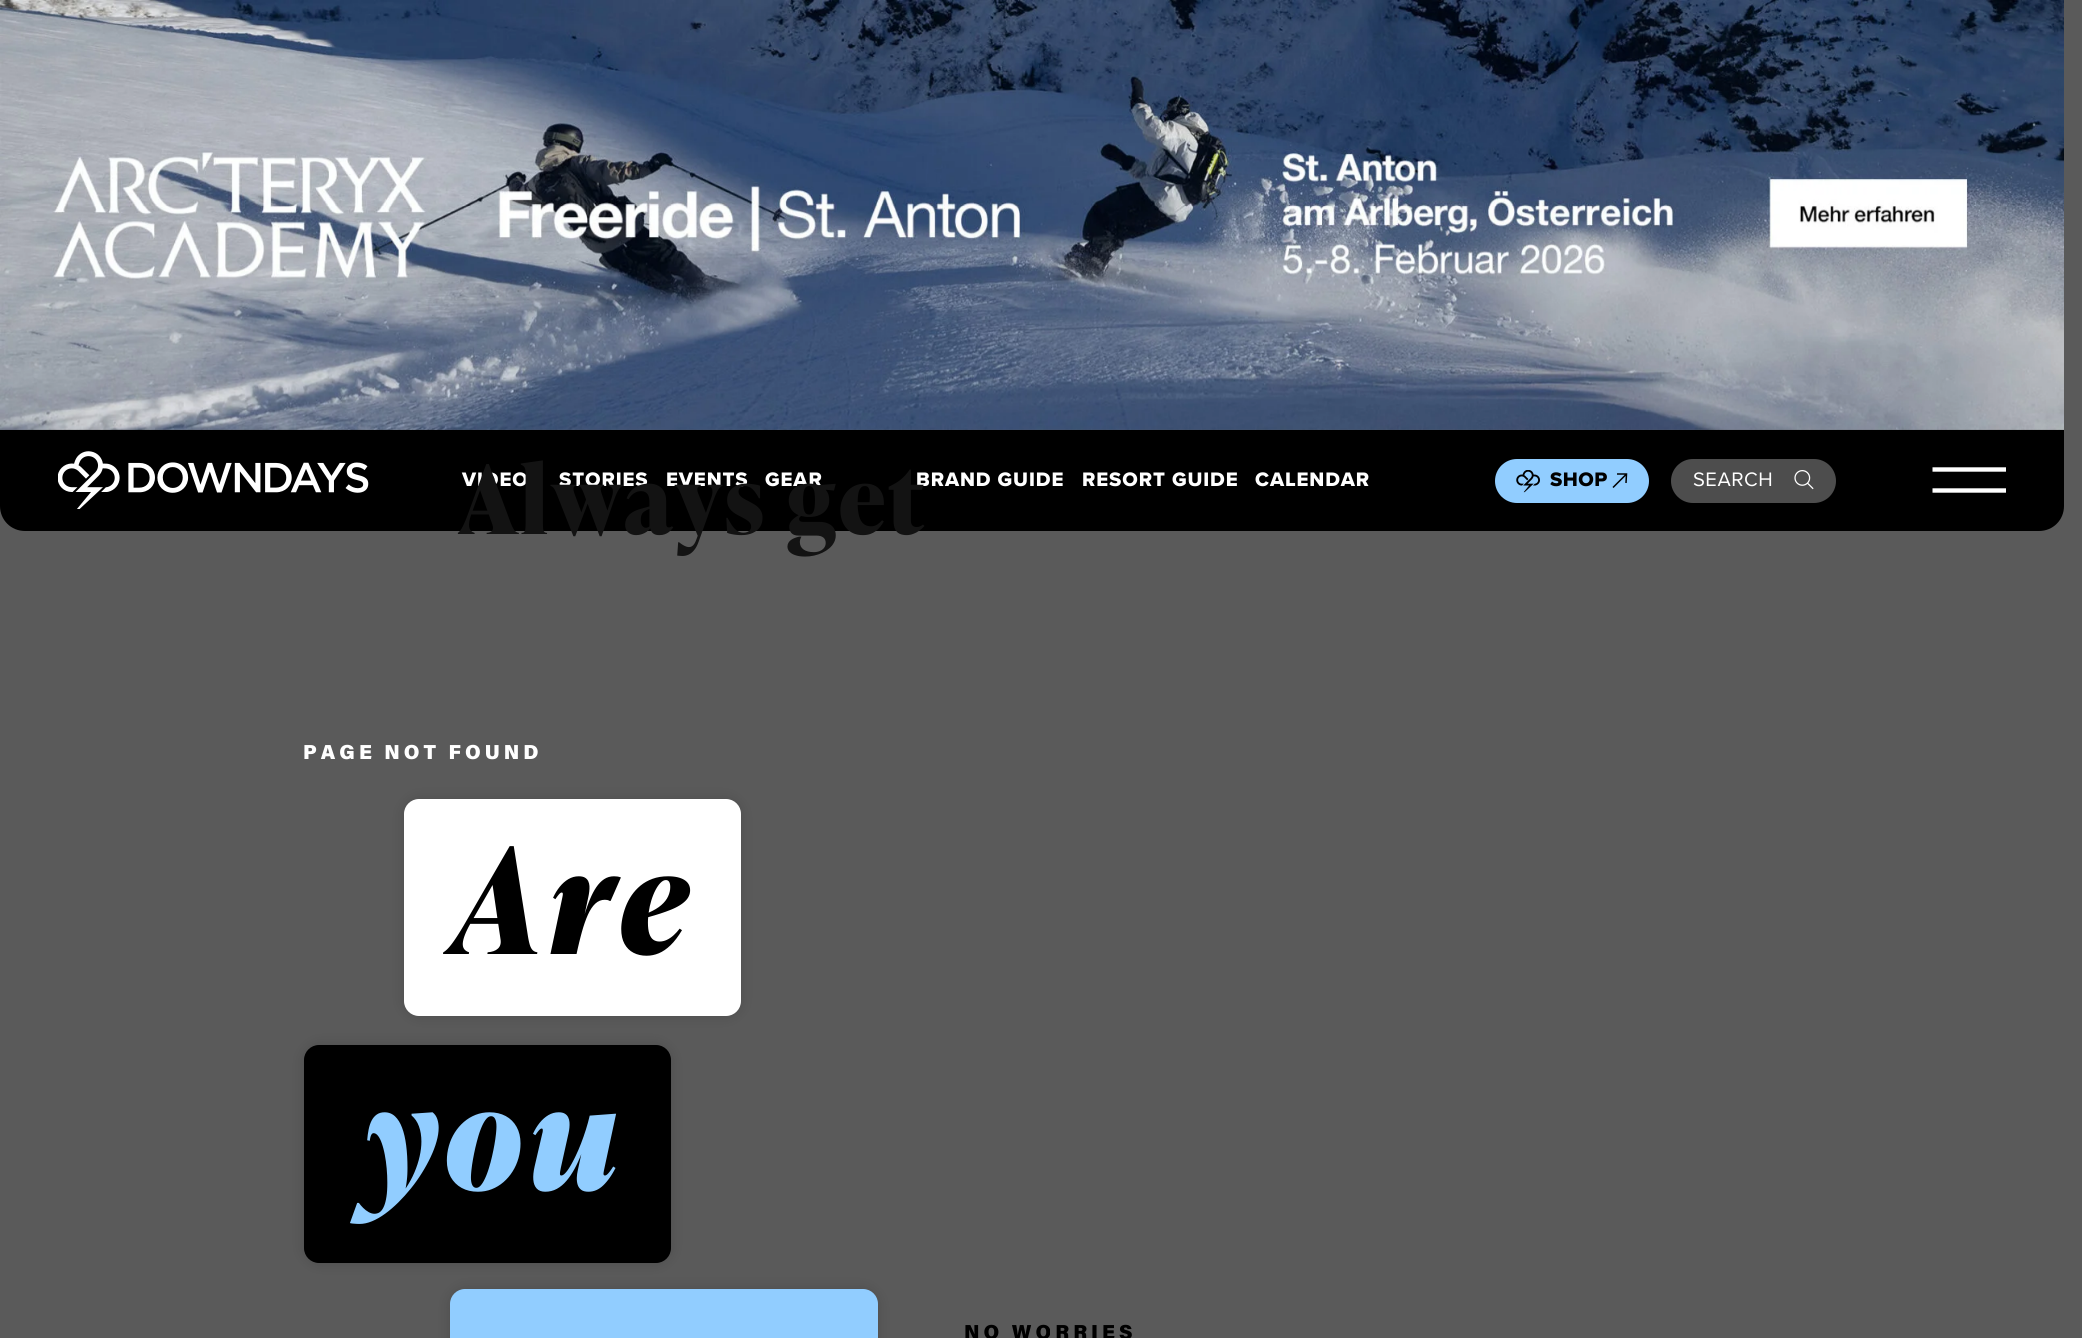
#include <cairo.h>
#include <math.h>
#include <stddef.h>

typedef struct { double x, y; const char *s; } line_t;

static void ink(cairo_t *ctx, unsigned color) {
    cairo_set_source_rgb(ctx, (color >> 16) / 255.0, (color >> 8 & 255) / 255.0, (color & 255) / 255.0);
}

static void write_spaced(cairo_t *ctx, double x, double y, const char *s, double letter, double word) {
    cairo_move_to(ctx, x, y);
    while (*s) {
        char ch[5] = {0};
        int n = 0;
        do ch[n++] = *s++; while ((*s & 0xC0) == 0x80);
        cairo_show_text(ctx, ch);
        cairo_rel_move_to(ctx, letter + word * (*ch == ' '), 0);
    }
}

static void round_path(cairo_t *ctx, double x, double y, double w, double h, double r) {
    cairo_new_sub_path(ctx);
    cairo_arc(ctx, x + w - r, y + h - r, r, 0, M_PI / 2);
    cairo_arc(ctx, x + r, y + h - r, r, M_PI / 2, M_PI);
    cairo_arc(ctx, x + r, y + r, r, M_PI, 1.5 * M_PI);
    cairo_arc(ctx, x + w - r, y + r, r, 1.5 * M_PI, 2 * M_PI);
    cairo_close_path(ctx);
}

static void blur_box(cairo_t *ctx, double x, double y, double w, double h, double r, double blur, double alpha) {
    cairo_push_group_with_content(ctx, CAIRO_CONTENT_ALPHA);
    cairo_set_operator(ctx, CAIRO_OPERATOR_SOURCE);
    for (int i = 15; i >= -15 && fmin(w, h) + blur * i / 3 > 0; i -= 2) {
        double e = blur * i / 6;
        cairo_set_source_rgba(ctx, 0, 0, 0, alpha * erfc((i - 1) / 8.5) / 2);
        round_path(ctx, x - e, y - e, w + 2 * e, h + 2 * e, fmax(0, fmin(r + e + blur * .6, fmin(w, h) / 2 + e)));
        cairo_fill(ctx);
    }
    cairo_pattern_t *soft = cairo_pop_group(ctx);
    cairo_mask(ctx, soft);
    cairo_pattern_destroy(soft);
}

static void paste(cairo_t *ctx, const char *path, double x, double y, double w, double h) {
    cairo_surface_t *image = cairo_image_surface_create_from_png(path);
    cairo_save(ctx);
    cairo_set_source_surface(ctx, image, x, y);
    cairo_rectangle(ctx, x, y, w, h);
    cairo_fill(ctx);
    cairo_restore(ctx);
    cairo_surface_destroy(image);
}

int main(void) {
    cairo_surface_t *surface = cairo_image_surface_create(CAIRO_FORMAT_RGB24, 2082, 1338);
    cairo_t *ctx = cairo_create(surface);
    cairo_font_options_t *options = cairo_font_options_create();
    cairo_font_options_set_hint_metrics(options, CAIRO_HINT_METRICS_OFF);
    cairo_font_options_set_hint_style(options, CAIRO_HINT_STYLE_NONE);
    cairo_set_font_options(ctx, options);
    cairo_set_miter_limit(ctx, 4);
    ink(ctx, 0x5A5A5A);
    cairo_paint(ctx);
    paste(ctx, "media/1.png", 0, 0, 2064, 430);
    ink(ctx, 0x000000);
    cairo_new_path(ctx);
    cairo_move_to(ctx, 0, 430);
    cairo_line_to(ctx, 2064, 430);
    cairo_line_to(ctx, 2064, 506);
    cairo_curve_to(ctx, 2064, 520, 2053, 531, 2039, 531);
    cairo_line_to(ctx, 25, 531);
    cairo_curve_to(ctx, 11, 531, 0, 520, 0, 506);
    cairo_close_path(ctx);
    cairo_fill(ctx);
    cairo_select_font_face(ctx, "Proxima Nova ExtraBold", CAIRO_FONT_SLANT_NORMAL, CAIRO_FONT_WEIGHT_NORMAL);
    cairo_set_font_size(ctx, 20.25);
    ink(ctx, 0xFFFFFF);
    {
        static const line_t items[] = {
            {462, 486, "VIDEOS"},
            {559, 486, "STORIES"},
            {666, 486, "EVENTS"},
            {765, 486, "GEAR"},
            {916, 486, "BRAND GUIDE"},
        };
        for (size_t i = 0; i < sizeof items / sizeof *items; i++) {
            write_spaced(ctx, items[i].x, items[i].y, items[i].s, 0.9, 0);
        }
    }
    cairo_select_font_face(ctx, "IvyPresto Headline", CAIRO_FONT_SLANT_NORMAL, CAIRO_FONT_WEIGHT_BOLD);
    cairo_set_font_size(ctx, 94);
    ink(ctx, 0x131313);
    write_spaced(ctx, 459, 534, "Always get", 2.75, 0);
    paste(ctx, "media/2.png", 58, 451, 311, 58);
    cairo_select_font_face(ctx, "Proxima Nova ExtraBold", CAIRO_FONT_SLANT_NORMAL, CAIRO_FONT_WEIGHT_NORMAL);
    cairo_set_font_size(ctx, 20.25);
    ink(ctx, 0xFFFFFF);
    write_spaced(ctx, 1082, 486, "RESORT GUIDE", 0.9, 0);
    write_spaced(ctx, 1255, 486, "CALENDAR", 0.9, 0);
    ink(ctx, 0x91CDFF);
    round_path(ctx, 1495, 459, 154, 44, 22);
    cairo_fill(ctx);
    paste(ctx, "media/3.png", 1516, 470, 24, 23);
    ink(ctx, 0x000000);
    write_spaced(ctx, 1550, 486, "SHOP", 0.5, 0);
    cairo_new_path(ctx);
    cairo_move_to(ctx, 1626, 483);
    cairo_line_to(ctx, 1626.5, 474);
    cairo_line_to(ctx, 1617, 474);
    cairo_move_to(ctx, 1613, 487.5);
    cairo_line_to(ctx, 1626.5, 474);
    cairo_set_line_width(ctx, 1.5);
    cairo_stroke(ctx);
    ink(ctx, 0x4D4D4D);
    round_path(ctx, 1671, 459, 165, 44, 22);
    cairo_fill(ctx);
    cairo_select_font_face(ctx, "Proxima Nova", CAIRO_FONT_SLANT_NORMAL, CAIRO_FONT_WEIGHT_NORMAL);
    ink(ctx, 0xFFFFFF);
    write_spaced(ctx, 1693, 486, "SEARCH", 0.5, 0);
    paste(ctx, "media/4.png", 1794, 470, 20, 20);
    cairo_new_path(ctx);
    cairo_move_to(ctx, 1932.5, 469.5);
    cairo_line_to(ctx, 2006, 469.5);
    cairo_set_line_width(ctx, 4.4);
    cairo_stroke(ctx);
    cairo_new_path(ctx);
    cairo_move_to(ctx, 1932.5, 490.5);
    cairo_line_to(ctx, 2006, 490.5);
    cairo_stroke(ctx);
    cairo_select_font_face(ctx, "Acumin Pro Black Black", CAIRO_FONT_SLANT_NORMAL, CAIRO_FONT_WEIGHT_NORMAL);
    write_spaced(ctx, 303, 759, "PAGE NOT FOUND", 4, 0);
    ink(ctx, 0x000000);
    blur_box(ctx, 404, 799, 337, 217, 15, 7.5, 0.15);
    ink(ctx, 0xFFFFFF);
    round_path(ctx, 404, 799, 337, 217, 15);
    cairo_fill(ctx);
    cairo_select_font_face(ctx, "IvyPresto Headline", CAIRO_FONT_SLANT_ITALIC, CAIRO_FONT_WEIGHT_BOLD);
    cairo_set_font_size(ctx, 145);
    ink(ctx, 0x000000);
    write_spaced(ctx, 453, 954, "Are", 6, 0);
    ink(ctx, 0x000000);
    blur_box(ctx, 304, 1045, 367, 218, 15, 7.5, 0.15);
    ink(ctx, 0x000000);
    round_path(ctx, 304, 1045, 367, 218, 15);
    cairo_fill(ctx);
    ink(ctx, 0x91CDFF);
    write_spaced(ctx, 365, 1190, "you", 6, 0);
    ink(ctx, 0x000000);
    blur_box(ctx, 450, 1289, 428, 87, 15, 7.5, 0.15);
    ink(ctx, 0x91CDFF);
    round_path(ctx, 450, 1289, 428, 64, 15);
    cairo_fill(ctx);
    cairo_select_font_face(ctx, "Acumin Pro Black Black", CAIRO_FONT_SLANT_NORMAL, CAIRO_FONT_WEIGHT_NORMAL);
    cairo_set_font_size(ctx, 20.25);
    ink(ctx, 0x000000);
    write_spaced(ctx, 964, 1339, "NO WORRIES", 4, 0);
    cairo_surface_write_to_png(surface, "image.png");
    cairo_font_options_destroy(options);
    cairo_destroy(ctx);
    cairo_surface_destroy(surface);
    return 0;
}
